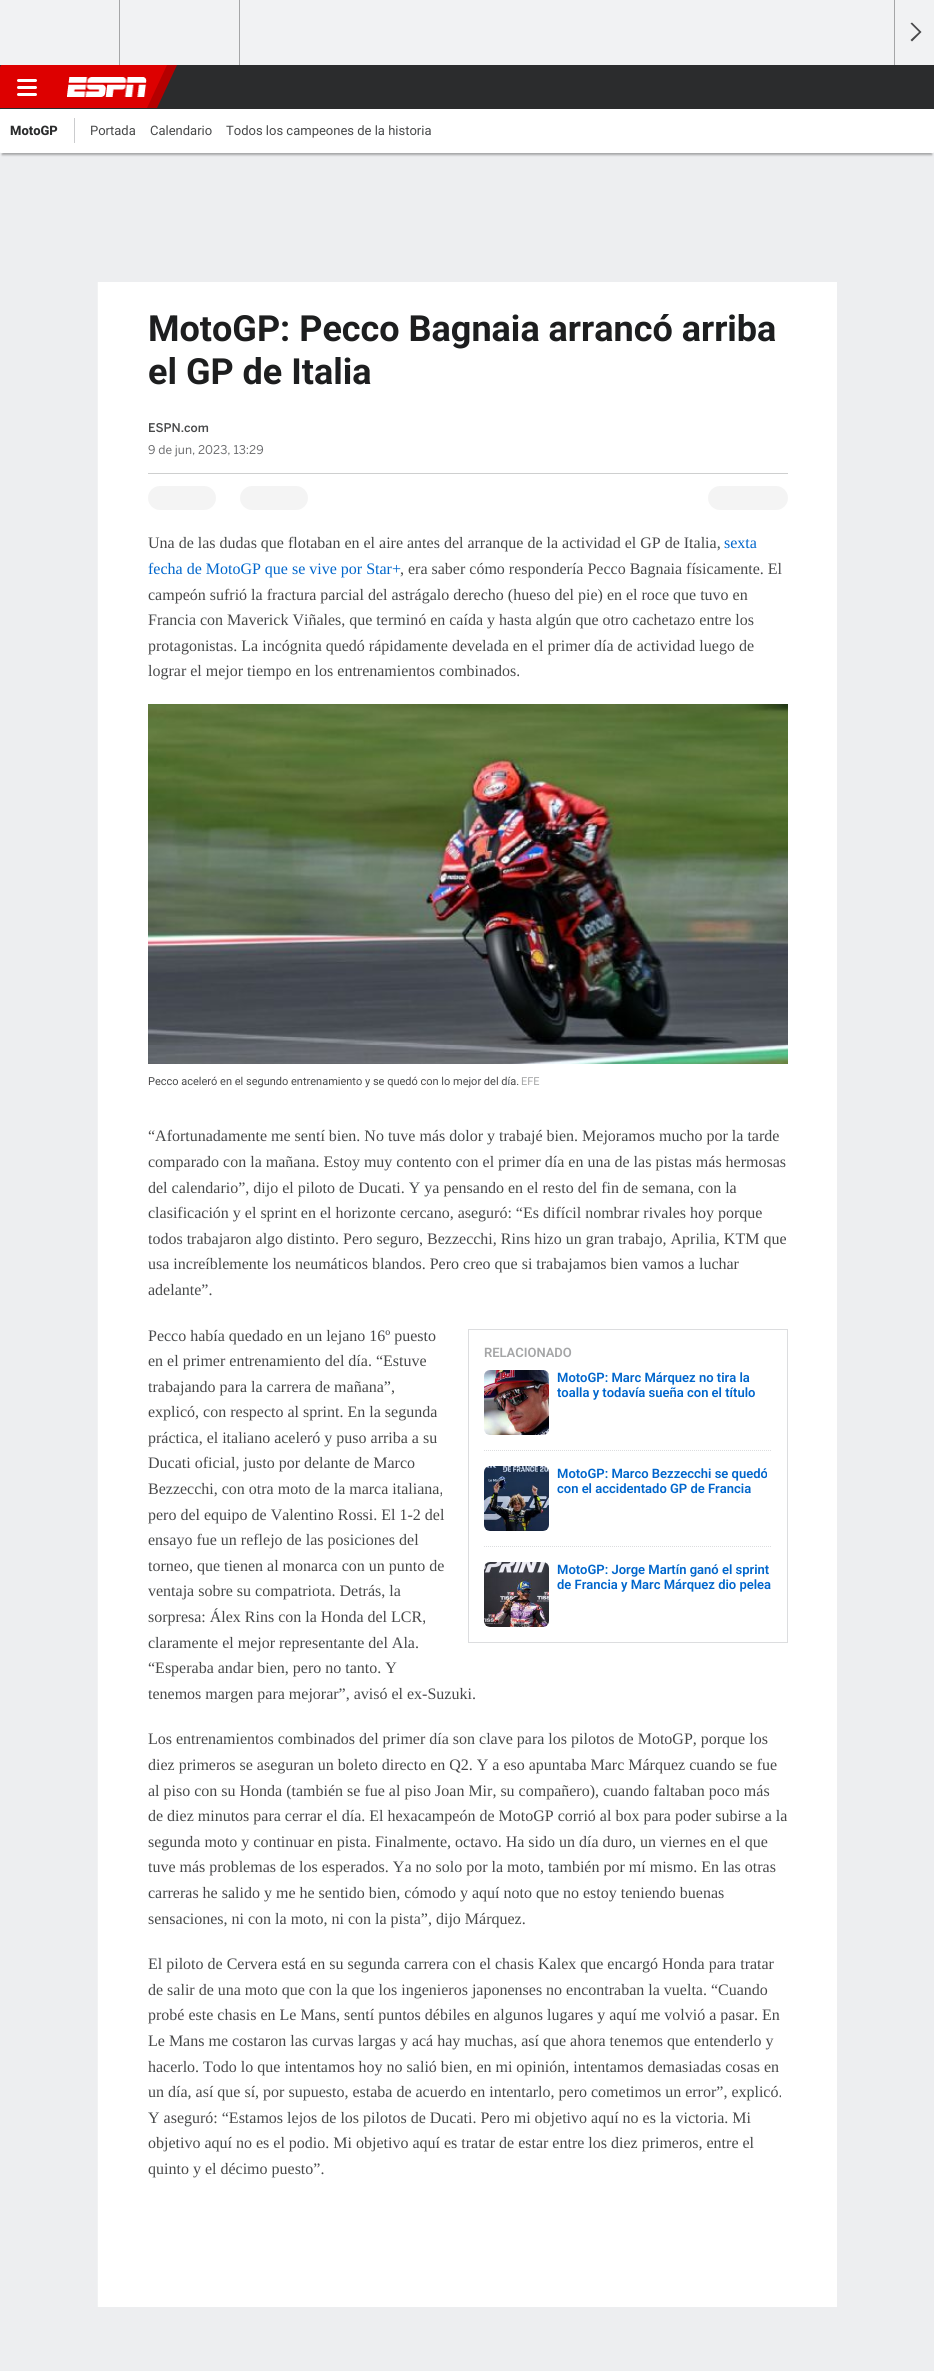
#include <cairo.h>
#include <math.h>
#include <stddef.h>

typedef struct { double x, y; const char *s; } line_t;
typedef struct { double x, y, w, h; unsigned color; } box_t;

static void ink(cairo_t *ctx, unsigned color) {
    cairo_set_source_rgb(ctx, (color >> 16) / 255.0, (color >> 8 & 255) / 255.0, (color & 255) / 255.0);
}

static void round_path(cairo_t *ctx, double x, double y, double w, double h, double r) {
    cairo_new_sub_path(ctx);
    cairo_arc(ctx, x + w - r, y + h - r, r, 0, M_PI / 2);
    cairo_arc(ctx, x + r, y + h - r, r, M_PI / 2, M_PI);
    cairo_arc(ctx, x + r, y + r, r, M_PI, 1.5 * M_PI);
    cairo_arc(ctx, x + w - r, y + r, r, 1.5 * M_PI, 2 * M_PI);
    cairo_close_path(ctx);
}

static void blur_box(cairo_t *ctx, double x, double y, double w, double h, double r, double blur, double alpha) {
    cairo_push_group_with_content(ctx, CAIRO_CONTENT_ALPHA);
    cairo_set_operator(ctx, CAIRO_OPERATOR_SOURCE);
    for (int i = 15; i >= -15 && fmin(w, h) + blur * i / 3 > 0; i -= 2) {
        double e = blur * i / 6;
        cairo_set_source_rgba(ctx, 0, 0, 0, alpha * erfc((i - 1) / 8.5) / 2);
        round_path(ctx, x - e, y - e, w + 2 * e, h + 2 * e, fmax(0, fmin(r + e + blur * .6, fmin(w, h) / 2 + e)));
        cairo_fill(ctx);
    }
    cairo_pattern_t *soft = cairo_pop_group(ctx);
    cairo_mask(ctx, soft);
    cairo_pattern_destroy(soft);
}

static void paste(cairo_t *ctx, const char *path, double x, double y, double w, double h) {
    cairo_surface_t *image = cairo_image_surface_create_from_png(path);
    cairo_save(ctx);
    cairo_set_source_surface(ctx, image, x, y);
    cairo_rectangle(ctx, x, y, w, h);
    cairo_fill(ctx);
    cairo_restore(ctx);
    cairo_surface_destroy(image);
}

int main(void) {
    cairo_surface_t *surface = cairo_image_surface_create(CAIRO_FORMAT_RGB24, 934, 2371);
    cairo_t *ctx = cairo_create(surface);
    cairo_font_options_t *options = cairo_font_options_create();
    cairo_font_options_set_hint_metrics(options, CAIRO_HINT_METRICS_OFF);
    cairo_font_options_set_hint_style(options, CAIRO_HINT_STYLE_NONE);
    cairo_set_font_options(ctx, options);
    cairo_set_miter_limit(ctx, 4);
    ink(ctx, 0xEDEEF0);
    cairo_paint(ctx);
    {
        static const box_t items[] = {
            {0, 0, 934, 65, 0xF1F2F3},
            {119, 0, 1, 65, 0xA5A6A7},
            {239, 0, 1, 65, 0xA5A6A7},
            {894, 0, 1, 65, 0xA5A6A7},
        };
        for (size_t i = 0; i < sizeof items / sizeof *items; i++) {
            ink(ctx, items[i].color);
            cairo_rectangle(ctx, items[i].x, items[i].y, items[i].w, items[i].h);
            cairo_fill(ctx);
        }
    }
    ink(ctx, 0x48494A);
    cairo_new_path(ctx);
    cairo_move_to(ctx, 912, 22.5);
    cairo_line_to(ctx, 910.5, 23.5);
    cairo_line_to(ctx, 919, 32);
    cairo_line_to(ctx, 910.5, 40);
    cairo_line_to(ctx, 912, 41.5);
    cairo_line_to(ctx, 921.5, 32);
    cairo_close_path(ctx);
    cairo_fill(ctx);
    ink(ctx, 0x2B2C2D);
    cairo_rectangle(ctx, 0, 65, 934, 44);
    cairo_fill(ctx);
    ink(ctx, 0xB40000);
    cairo_new_path(ctx);
    cairo_move_to(ctx, 54, 65);
    cairo_line_to(ctx, 177, 65);
    cairo_line_to(ctx, 157, 108);
    cairo_line_to(ctx, 34, 108);
    cairo_close_path(ctx);
    cairo_fill(ctx);
    ink(ctx, 0xDD0000);
    cairo_new_path(ctx);
    cairo_move_to(ctx, 1, 65);
    cairo_line_to(ctx, 167, 65);
    cairo_line_to(ctx, 147, 108);
    cairo_line_to(ctx, -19, 108);
    cairo_close_path(ctx);
    cairo_fill(ctx);
    paste(ctx, "media/1.png", 67, 77, 80, 20);
    ink(ctx, 0xFFFFFF);
    round_path(ctx, 17, 86, 20, 3, 1.5);
    cairo_fill(ctx);
    round_path(ctx, 17, 79, 20, 3, 1.5);
    cairo_fill(ctx);
    round_path(ctx, 17, 93, 20, 3, 1.5);
    cairo_fill(ctx);
    ink(ctx, 0x000000);
    blur_box(ctx, 2, 115, 930, 40, 0, 1, 0.3);
    ink(ctx, 0xFFFFFF);
    round_path(ctx, 0, 109, 934, 44, 1);
    cairo_fill(ctx);
    cairo_select_font_face(ctx, "Roboto ExtraBold", CAIRO_FONT_SLANT_NORMAL, CAIRO_FONT_WEIGHT_NORMAL);
    cairo_set_font_size(ctx, 13);
    ink(ctx, 0x2B2C2D);
    cairo_move_to(ctx, 10, 135);
    cairo_show_text(ctx, "MotoGP");
    ink(ctx, 0xCBCCCE);
    cairo_rectangle(ctx, 74, 118, 1, 25);
    cairo_fill(ctx);
    cairo_select_font_face(ctx, "Roboto", CAIRO_FONT_SLANT_NORMAL, CAIRO_FONT_WEIGHT_NORMAL);
    ink(ctx, 0x48494A);
    {
        static const line_t items[] = {
            {90, 135, "Portada"},
            {150, 135, "Calendario"},
            {226, 135, "Todos los campeones de la historia"},
        };
        for (size_t i = 0; i < sizeof items / sizeof *items; i++) {
            cairo_move_to(ctx, items[i].x, items[i].y);
            cairo_show_text(ctx, items[i].s);
        }
    }
    ink(ctx, 0xF1F2F3);
    cairo_rectangle(ctx, 97, 282, 1, 2025);
    cairo_fill(ctx);
    ink(ctx, 0xFFFFFF);
    cairo_rectangle(ctx, 98, 282, 739, 2025);
    cairo_fill(ctx);
    cairo_select_font_face(ctx, "Roboto", CAIRO_FONT_SLANT_NORMAL, CAIRO_FONT_WEIGHT_BOLD);
    cairo_set_font_size(ctx, 36);
    ink(ctx, 0x1D1E1F);
    cairo_move_to(ctx, 148, 341);
    cairo_show_text(ctx, "MotoGP: Pecco Bagnaia arrancó arriba");
    cairo_move_to(ctx, 148, 384);
    cairo_show_text(ctx, "el GP de Italia");
    ink(ctx, 0xCECFCF);
    cairo_rectangle(ctx, 148, 473, 640, 1);
    cairo_fill(ctx);
    cairo_select_font_face(ctx, "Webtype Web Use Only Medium", CAIRO_FONT_SLANT_NORMAL, CAIRO_FONT_WEIGHT_NORMAL);
    cairo_set_font_size(ctx, 12);
    ink(ctx, 0x48494A);
    cairo_move_to(ctx, 148, 432);
    cairo_show_text(ctx, "ESPN.com");
    cairo_select_font_face(ctx, "Webtype Web Use Only", CAIRO_FONT_SLANT_NORMAL, CAIRO_FONT_WEIGHT_NORMAL);
    ink(ctx, 0x6C6D6F);
    cairo_move_to(ctx, 148, 454);
    cairo_show_text(ctx, "9 de jun, 2023, 13:29");
    ink(ctx, 0xF4F4F4);
    round_path(ctx, 148, 486, 68, 24, 12);
    cairo_fill(ctx);
    round_path(ctx, 240, 486, 68, 24, 12);
    cairo_fill(ctx);
    round_path(ctx, 708, 486, 80, 24, 12);
    cairo_fill(ctx);
    cairo_select_font_face(ctx, "Liberation Serif", CAIRO_FONT_SLANT_NORMAL, CAIRO_FONT_WEIGHT_NORMAL);
    cairo_set_font_size(ctx, 16);
    ink(ctx, 0x48494A);
    cairo_move_to(ctx, 148, 548);
    cairo_show_text(ctx, "Una de las dudas que flotaban en el aire antes del arranque de la actividad el GP de Italia,");
    ink(ctx, 0x0066CC);
    cairo_move_to(ctx, 724, 548);
    cairo_show_text(ctx, "sexta");
    cairo_move_to(ctx, 148, 574);
    cairo_show_text(ctx, "fecha de MotoGP que se vive por Star+");
    ink(ctx, 0x48494A);
    {
        static const line_t items[] = {
            {400, 574, ", era saber cómo respondería Pecco Bagnaia físicamente. El"},
            {148, 600, "campeón sufrió la fractura parcial del astrágalo derecho (hueso del pie) en el roce que tuvo en"},
            {148, 625, "Francia con Maverick Viñales, que terminó en caída y hasta algún que otro cachetazo entre los"},
            {148, 651, "protagonistas. La incógnita quedó rápidamente develada en el primer día de actividad luego de"},
            {148, 676, "lograr el mejor tiempo en los entrenamientos combinados."},
        };
        for (size_t i = 0; i < sizeof items / sizeof *items; i++) {
            cairo_move_to(ctx, items[i].x, items[i].y);
            cairo_show_text(ctx, items[i].s);
        }
    }
    paste(ctx, "media/2.png", 148, 704, 640, 360);
    cairo_select_font_face(ctx, "Roboto", CAIRO_FONT_SLANT_NORMAL, CAIRO_FONT_WEIGHT_NORMAL);
    cairo_set_font_size(ctx, 11);
    cairo_move_to(ctx, 148, 1085);
    cairo_show_text(ctx, "Pecco aceleró en el segundo entrenamiento y se quedó con lo mejor del día.");
    ink(ctx, 0xA5A6A7);
    cairo_move_to(ctx, 521, 1085);
    cairo_show_text(ctx, "EFE");
    cairo_select_font_face(ctx, "Liberation Serif", CAIRO_FONT_SLANT_NORMAL, CAIRO_FONT_WEIGHT_NORMAL);
    cairo_set_font_size(ctx, 16);
    ink(ctx, 0x48494A);
    {
        static const line_t items[] = {
            {148, 1141, "“Afortunadamente me sentí bien. No tuve más dolor y trabajé bien. Mejoramos mucho por la tarde"},
            {148, 1167, "comparado con la mañana. Estoy muy contento con el primer día en una de las pistas más hermosas"},
            {148, 1193, "del calendario”, dijo el piloto de Ducati. Y ya pensando en el resto del fin de semana, con la"},
            {148, 1218, "clasificación y el sprint en el horizonte cercano, aseguró: “Es difícil nombrar rivales hoy porque"},
            {148, 1244, "todos trabajaron algo distinto. Pero seguro, Bezzecchi, Rins hizo un gran trabajo, Aprilia, KTM que"},
            {148, 1269, "usa increíblemente los neumáticos blandos. Pero creo que si trabajamos bien vamos a luchar"},
            {148, 1295, "adelante”."},
            {148, 1341, "Pecco había quedado en un lejano 16º puesto"},
            {148, 1366, "en el primer entrenamiento del día. “Estuve"},
            {148, 1392, "trabajando para la carrera de mañana”,"},
            {148, 1417, "explicó, con respecto al sprint. En la segunda"},
            {148, 1443, "práctica, el italiano aceleró y puso arriba a su"},
            {148, 1468, "Ducati oficial, justo por delante de Marco"},
            {148, 1494, "Bezzecchi, con otra moto de la marca italiana,"},
            {148, 1520, "pero del equipo de Valentino Rossi. El 1-2 del"},
            {148, 1545, "ensayo fue un reflejo de las posiciones del"},
            {148, 1571, "torneo, que tienen al monarca con un punto de"},
            {148, 1596, "ventaja sobre su compatriota. Detrás, la"},
            {148, 1622, "sorpresa: Álex Rins con la Honda del LCR,"},
            {148, 1648, "claramente el mejor representante del Ala."},
            {148, 1673, "“Esperaba andar bien, pero no tanto. Y"},
            {148, 1699, "tenemos margen para mejorar”, avisó el ex-Suzuki."},
        };
        for (size_t i = 0; i < sizeof items / sizeof *items; i++) {
            cairo_move_to(ctx, items[i].x, items[i].y);
            cairo_show_text(ctx, items[i].s);
        }
    }
    cairo_rectangle(ctx, 468.5, 1329.5, 319, 313);
    ink(ctx, 0xDCDDDF);
    cairo_set_line_width(ctx, 1);
    cairo_stroke(ctx);
    cairo_select_font_face(ctx, "Roboto SemiBold", CAIRO_FONT_SLANT_NORMAL, CAIRO_FONT_WEIGHT_NORMAL);
    cairo_set_font_size(ctx, 13);
    ink(ctx, 0xA5A6A7);
    cairo_move_to(ctx, 484, 1357);
    cairo_show_text(ctx, "RELACIONADO");
    paste(ctx, "media/3.png", 484, 1370, 65, 65);
    ink(ctx, 0x0066CC);
    cairo_move_to(ctx, 557, 1382);
    cairo_show_text(ctx, "MotoGP: Marc Márquez no tira la");
    cairo_move_to(ctx, 557, 1397);
    cairo_show_text(ctx, "toalla y todavía sueña con el título");
    cairo_new_path(ctx);
    cairo_move_to(ctx, 484, 1450.5);
    cairo_line_to(ctx, 772, 1450.5);
    ink(ctx, 0xDCDDDF);
    cairo_set_dash(ctx, (double[]){1, 1}, 2, 0);
    cairo_stroke(ctx);
    paste(ctx, "media/4.png", 484, 1466, 65, 65);
    ink(ctx, 0x0066CC);
    cairo_move_to(ctx, 557, 1478);
    cairo_show_text(ctx, "MotoGP: Marco Bezzecchi se quedó");
    cairo_move_to(ctx, 557, 1493);
    cairo_show_text(ctx, "con el accidentado GP de Francia");
    cairo_new_path(ctx);
    cairo_move_to(ctx, 484, 1546.5);
    cairo_line_to(ctx, 772, 1546.5);
    ink(ctx, 0xDCDDDF);
    cairo_stroke(ctx);
    paste(ctx, "media/5.png", 484, 1562, 65, 65);
    ink(ctx, 0x0066CC);
    cairo_move_to(ctx, 557, 1574);
    cairo_show_text(ctx, "MotoGP: Jorge Martín ganó el sprint");
    cairo_move_to(ctx, 557, 1589);
    cairo_show_text(ctx, "de Francia y Marc Márquez dio pelea");
    cairo_select_font_face(ctx, "Liberation Serif", CAIRO_FONT_SLANT_NORMAL, CAIRO_FONT_WEIGHT_NORMAL);
    cairo_set_font_size(ctx, 16);
    ink(ctx, 0x48494A);
    {
        static const line_t items[] = {
            {148, 1744, "Los entrenamientos combinados del primer día son clave para los pilotos de MotoGP, porque los"},
            {148, 1770, "diez primeros se aseguran un boleto directo en Q2. Y a eso apuntaba Marc Márquez cuando se fue"},
            {148, 1796, "al piso con su Honda (también se fue al piso Joan Mir, su compañero), cuando faltaban poco más"},
            {148, 1821, "de diez minutos para cerrar el día. El hexacampeón de MotoGP corrió al box para poder subirse a la"},
            {148, 1847, "segunda moto y continuar en pista. Finalmente, octavo. Ha sido un día duro, un viernes en el que"},
            {148, 1872, "tuve más problemas de los esperados. Ya no solo por la moto, también por mí mismo. En las otras"},
            {148, 1898, "carreras he salido y me he sentido bien, cómodo y aquí noto que no estoy teniendo buenas"},
            {148, 1924, "sensaciones, ni con la moto, ni con la pista”, dijo Márquez."},
            {148, 1969, "El piloto de Cervera está en su segunda carrera con el chasis Kalex que encargó Honda para tratar"},
            {148, 1995, "de salir de una moto que con la que los ingenieros japonenses no encontraban la vuelta. “Cuando"},
            {148, 2020, "probé este chasis en Le Mans, sentí puntos débiles en algunos lugares y aquí me volvió a pasar. En"},
            {148, 2046, "Le Mans me costaron las curvas largas y acá hay muchas, así que ahora tenemos que entenderlo y"},
            {148, 2072, "hacerlo. Todo lo que intentamos hoy no salió bien, en mi opinión, intentamos demasiadas cosas en"},
            {148, 2097, "un día, así que sí, por supuesto, estaba de acuerdo en intentarlo, pero cometimos un error”, explicó."},
            {148, 2123, "Y aseguró: “Estamos lejos de los pilotos de Ducati. Pero mi objetivo aquí no es la victoria. Mi"},
            {148, 2148, "objetivo aquí no es el podio. Mi objetivo aquí es tratar de estar entre los diez primeros, entre el"},
            {148, 2174, "quinto y el décimo puesto”."},
        };
        for (size_t i = 0; i < sizeof items / sizeof *items; i++) {
            cairo_move_to(ctx, items[i].x, items[i].y);
            cairo_show_text(ctx, items[i].s);
        }
    }
    cairo_surface_write_to_png(surface, "image.png");
    cairo_font_options_destroy(options);
    cairo_destroy(ctx);
    cairo_surface_destroy(surface);
    return 0;
}
